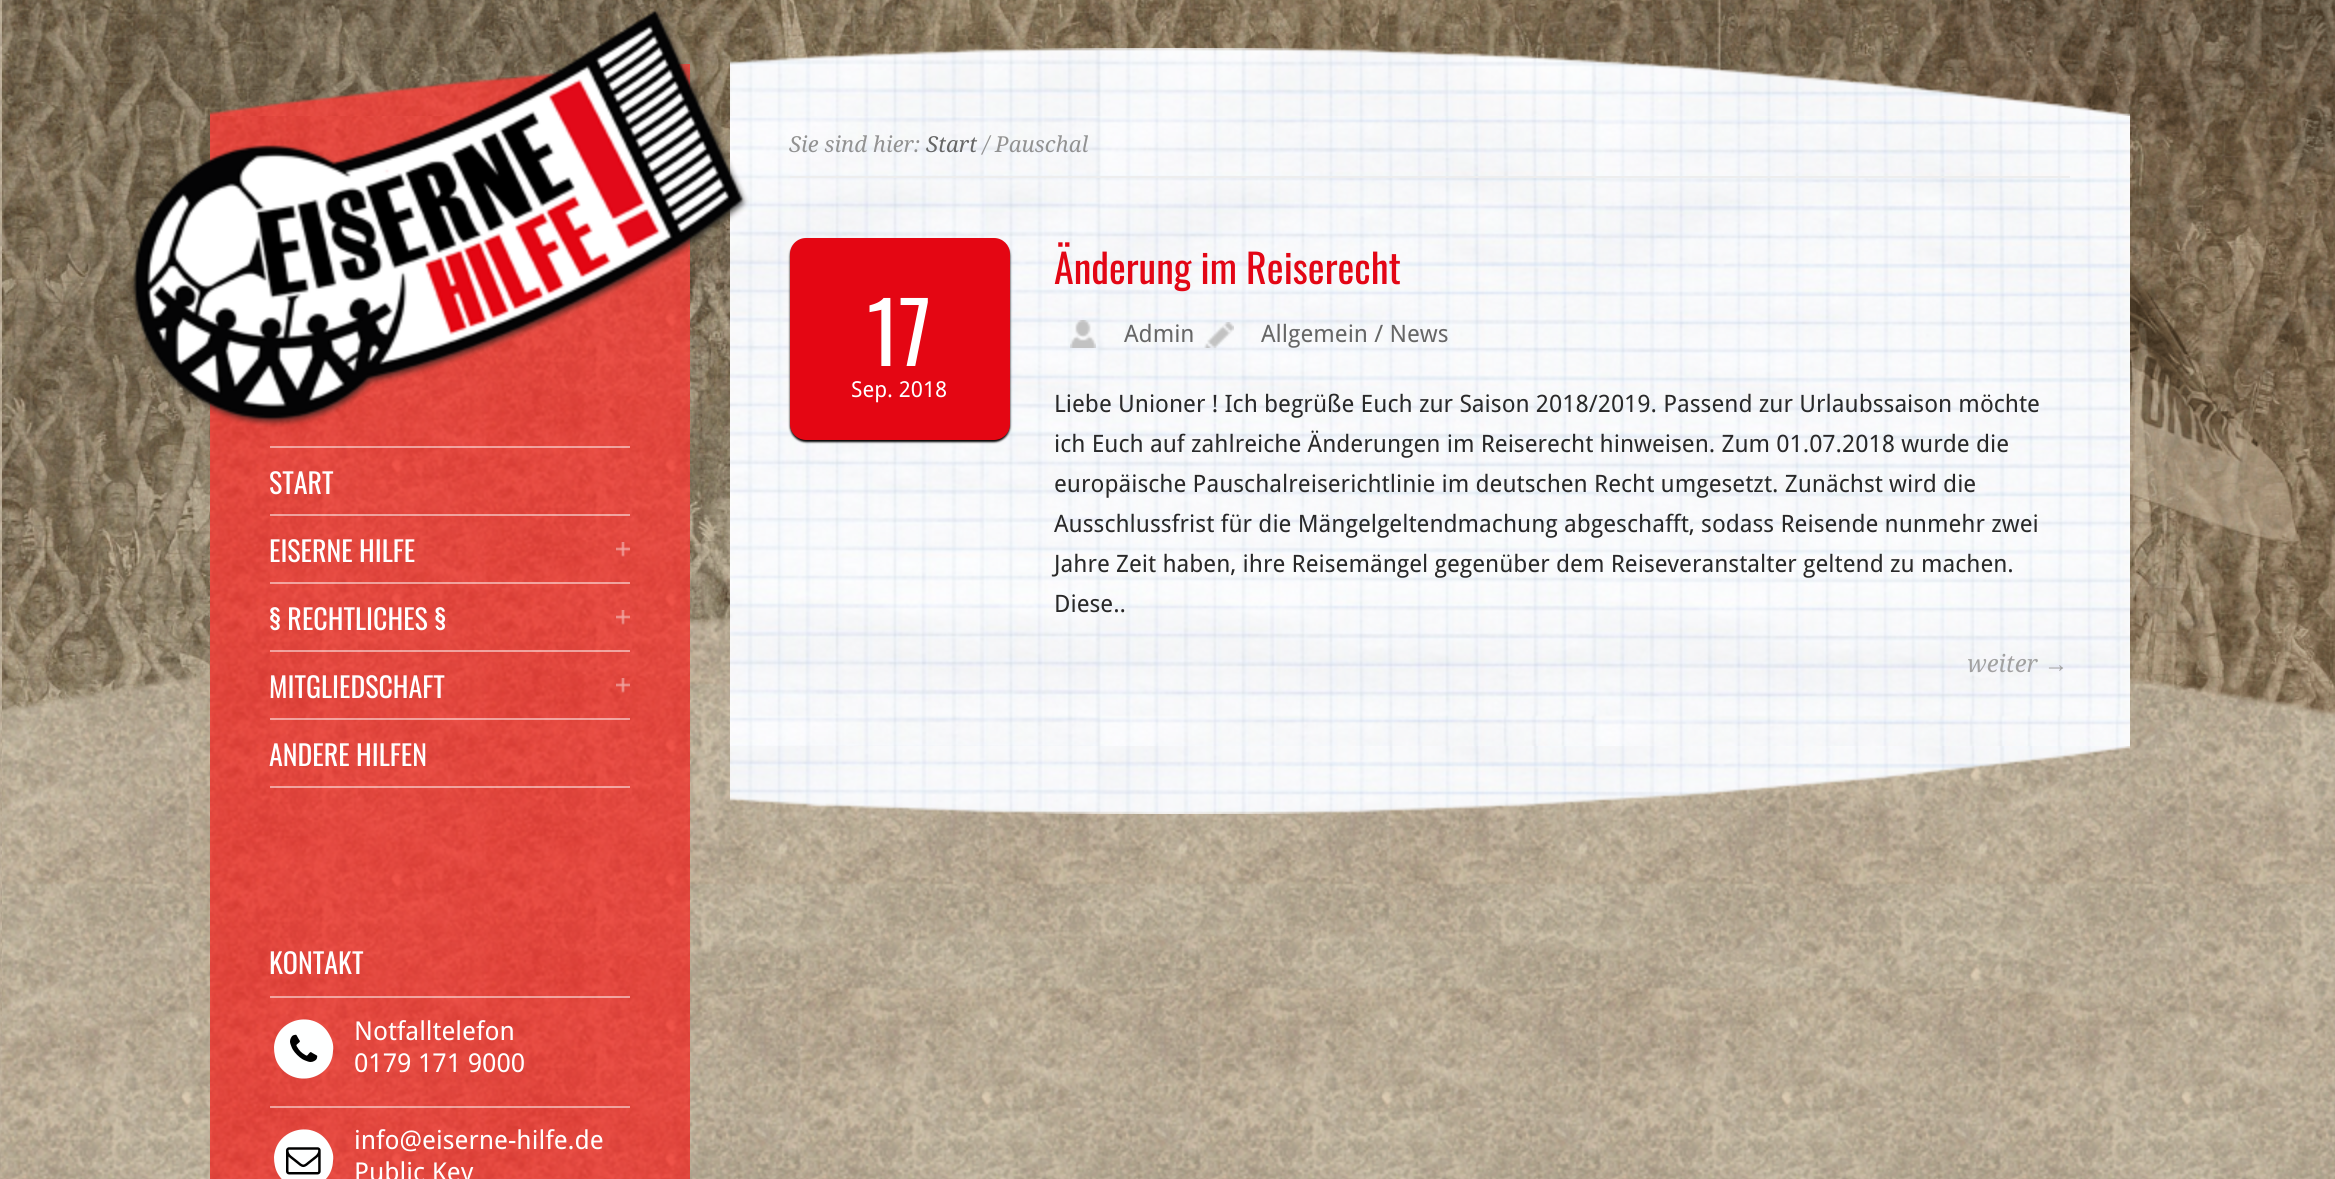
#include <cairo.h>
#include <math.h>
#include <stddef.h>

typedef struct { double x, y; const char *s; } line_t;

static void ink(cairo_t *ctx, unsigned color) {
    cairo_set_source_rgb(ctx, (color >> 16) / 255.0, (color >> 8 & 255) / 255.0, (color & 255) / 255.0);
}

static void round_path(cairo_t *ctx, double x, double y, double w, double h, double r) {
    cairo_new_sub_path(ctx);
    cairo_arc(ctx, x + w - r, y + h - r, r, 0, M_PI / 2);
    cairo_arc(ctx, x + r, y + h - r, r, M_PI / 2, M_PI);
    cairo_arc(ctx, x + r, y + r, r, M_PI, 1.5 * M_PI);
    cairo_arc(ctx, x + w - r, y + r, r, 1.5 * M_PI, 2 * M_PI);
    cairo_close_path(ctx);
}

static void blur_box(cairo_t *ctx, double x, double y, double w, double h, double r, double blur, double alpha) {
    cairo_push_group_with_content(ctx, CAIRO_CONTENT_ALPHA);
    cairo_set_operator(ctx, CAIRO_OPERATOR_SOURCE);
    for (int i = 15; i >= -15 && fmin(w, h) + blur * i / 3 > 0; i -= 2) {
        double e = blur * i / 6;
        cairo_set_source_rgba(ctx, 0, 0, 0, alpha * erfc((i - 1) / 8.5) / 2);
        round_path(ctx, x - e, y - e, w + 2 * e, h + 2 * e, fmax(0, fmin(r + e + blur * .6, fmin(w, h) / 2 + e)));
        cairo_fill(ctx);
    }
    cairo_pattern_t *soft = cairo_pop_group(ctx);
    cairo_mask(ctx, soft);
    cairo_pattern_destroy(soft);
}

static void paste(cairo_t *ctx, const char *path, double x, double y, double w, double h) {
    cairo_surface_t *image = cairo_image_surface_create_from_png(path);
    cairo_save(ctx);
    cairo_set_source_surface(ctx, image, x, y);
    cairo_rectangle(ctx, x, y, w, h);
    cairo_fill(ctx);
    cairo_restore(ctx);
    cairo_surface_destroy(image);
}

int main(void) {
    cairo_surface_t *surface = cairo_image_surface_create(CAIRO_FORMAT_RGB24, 2335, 1179);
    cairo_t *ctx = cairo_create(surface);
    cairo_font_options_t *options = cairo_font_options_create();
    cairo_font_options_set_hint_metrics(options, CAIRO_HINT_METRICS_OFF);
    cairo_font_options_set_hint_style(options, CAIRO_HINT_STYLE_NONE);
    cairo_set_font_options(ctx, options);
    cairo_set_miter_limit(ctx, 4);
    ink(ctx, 0xFFFFFF);
    cairo_paint(ctx);
    paste(ctx, "media/1.png", 0, 0, 2335, 1179);
    paste(ctx, "media/2.png", 2, 0, 2333, 720);
    paste(ctx, "media/3.png", 2, 617, 2333, 426);
    paste(ctx, "media/4.png", 730, 48, 1400, 68);
    paste(ctx, "media/5.png", 730, 116, 1400, 630);
    ink(ctx, 0xEEEEEE);
    cairo_rectangle(ctx, 790, 176, 1280, 2);
    cairo_fill(ctx);
    cairo_select_font_face(ctx, "Droid Serif", CAIRO_FONT_SLANT_ITALIC, CAIRO_FONT_WEIGHT_NORMAL);
    cairo_set_font_size(ctx, 22);
    ink(ctx, 0x929292);
    cairo_move_to(ctx, 789, 152);
    cairo_show_text(ctx, "Sie sind hier:");
    ink(ctx, 0x666666);
    cairo_move_to(ctx, 926, 152);
    cairo_show_text(ctx, "Start");
    ink(ctx, 0x929292);
    cairo_move_to(ctx, 983, 152);
    cairo_show_text(ctx, "/ Pauschal");
    ink(ctx, 0x000000);
    blur_box(ctx, 790, 240, 220, 202, 16, 1, 1);
    ink(ctx, 0xE40613);
    round_path(ctx, 790, 238, 220, 202, 16);
    cairo_fill(ctx);
    cairo_select_font_face(ctx, "Oswald", CAIRO_FONT_SLANT_NORMAL, CAIRO_FONT_WEIGHT_NORMAL);
    cairo_set_font_size(ctx, 84);
    ink(ctx, 0xFFFFFF);
    cairo_move_to(ctx, 867, 366);
    cairo_show_text(ctx, "17");
    cairo_select_font_face(ctx, "Droid Sans", CAIRO_FONT_SLANT_NORMAL, CAIRO_FONT_WEIGHT_NORMAL);
    cairo_set_font_size(ctx, 22);
    cairo_move_to(ctx, 851, 397);
    cairo_show_text(ctx, "Sep. 2018");
    cairo_select_font_face(ctx, "Oswald", CAIRO_FONT_SLANT_NORMAL, CAIRO_FONT_WEIGHT_NORMAL);
    cairo_set_font_size(ctx, 40);
    ink(ctx, 0xE30615);
    cairo_move_to(ctx, 1054, 284);
    cairo_show_text(ctx, "Änderung im Reiserecht");
    paste(ctx, "media/6.png", 1070, 320, 26, 28);
    cairo_select_font_face(ctx, "Droid Sans", CAIRO_FONT_SLANT_NORMAL, CAIRO_FONT_WEIGHT_NORMAL);
    cairo_set_font_size(ctx, 24);
    ink(ctx, 0x666666);
    cairo_move_to(ctx, 1124, 342);
    cairo_show_text(ctx, "Admin");
    paste(ctx, "media/7.png", 1204, 322, 30, 26);
    cairo_move_to(ctx, 1261, 342);
    cairo_show_text(ctx, "Allgemein / News");
    ink(ctx, 0x292929);
    {
        static const line_t items[] = {
            {1054, 412, "Liebe Unioner ! Ich begrüße Euch zur Saison 2018/2019. Passend zur Urlaubssaison möchte"},
            {1054, 452, "ich Euch auf zahlreiche Änderungen im Reiserecht hinweisen. Zum 01.07.2018 wurde die"},
            {1054, 492, "europäische Pauschalreiserichtlinie im deutschen Recht umgesetzt. Zunächst wird die"},
            {1054, 532, "Ausschlussfrist für die Mängelgeltendmachung abgeschafft, sodass Reisende nunmehr zwei"},
            {1054, 572, "Jahre Zeit haben, ihre Reisemängel gegenüber dem Reiseveranstalter geltend zu machen."},
            {1054, 612, "Diese.."},
        };
        for (size_t i = 0; i < sizeof items / sizeof *items; i++) {
            cairo_move_to(ctx, items[i].x, items[i].y);
            cairo_show_text(ctx, items[i].s);
        }
    }
    cairo_select_font_face(ctx, "Droid Serif", CAIRO_FONT_SLANT_ITALIC, CAIRO_FONT_WEIGHT_NORMAL);
    ink(ctx, 0xA1A1A1);
    cairo_move_to(ctx, 1967, 672);
    cairo_show_text(ctx, "weiter");
    cairo_select_font_face(ctx, "Liberation Serif", CAIRO_FONT_SLANT_ITALIC, CAIRO_FONT_WEIGHT_NORMAL);
    cairo_move_to(ctx, 2044, 672);
    cairo_show_text(ctx, "→");
    paste(ctx, "media/8.png", 730, 746, 1400, 68);
    paste(ctx, "media/10.png", 210, 64, 480, 52);
    paste(ctx, "media/11.png", 210, 116, 480, 1063);
    paste(ctx, "media/9.png", 133, 9, 616, 418);
    cairo_set_source_rgba(ctx, 1, 1, 1, 0.5);
    cairo_rectangle(ctx, 270, 446, 360, 2);
    cairo_fill(ctx);
    cairo_rectangle(ctx, 270, 514, 360, 2);
    cairo_fill(ctx);
    cairo_select_font_face(ctx, "Oswald", CAIRO_FONT_SLANT_NORMAL, CAIRO_FONT_WEIGHT_NORMAL);
    cairo_set_font_size(ctx, 28);
    ink(ctx, 0xFFFFFF);
    cairo_move_to(ctx, 269, 494);
    cairo_show_text(ctx, "START");
    cairo_set_source_rgba(ctx, 1, 1, 1, 0.5);
    cairo_rectangle(ctx, 270, 582, 360, 2);
    cairo_fill(ctx);
    paste(ctx, "media/12.png", 616, 542, 14, 15);
    ink(ctx, 0xFFFFFF);
    cairo_move_to(ctx, 269, 562);
    cairo_show_text(ctx, "EISERNE HILFE");
    cairo_set_source_rgba(ctx, 1, 1, 1, 0.5);
    cairo_rectangle(ctx, 270, 650, 360, 2);
    cairo_fill(ctx);
    paste(ctx, "media/13.png", 616, 610, 14, 15);
    ink(ctx, 0xFFFFFF);
    cairo_move_to(ctx, 269, 630);
    cairo_show_text(ctx, "§ RECHTLICHES §");
    cairo_set_source_rgba(ctx, 1, 1, 1, 0.5);
    cairo_rectangle(ctx, 270, 718, 360, 2);
    cairo_fill(ctx);
    paste(ctx, "media/14.png", 616, 678, 14, 15);
    ink(ctx, 0xFFFFFF);
    cairo_move_to(ctx, 269, 698);
    cairo_show_text(ctx, "MITGLIEDSCHAFT");
    cairo_set_source_rgba(ctx, 1, 1, 1, 0.5);
    cairo_rectangle(ctx, 270, 786, 360, 2);
    cairo_fill(ctx);
    ink(ctx, 0xFFFFFF);
    cairo_move_to(ctx, 269, 766);
    cairo_show_text(ctx, "ANDERE HILFEN");
    cairo_move_to(ctx, 269, 974);
    cairo_show_text(ctx, "KONTAKT");
    cairo_set_source_rgba(ctx, 1, 1, 1, 0.5);
    cairo_rectangle(ctx, 270, 996, 360, 2);
    cairo_fill(ctx);
    ink(ctx, 0xFEFFFF);
    cairo_new_path(ctx);
    cairo_move_to(ctx, 329, 1034);
    cairo_curve_to(ctx, 332, 1039, 334, 1045, 333, 1051);
    cairo_curve_to(ctx, 332, 1080, 293, 1089, 278, 1064);
    cairo_curve_to(ctx, 275, 1059, 274, 1053, 274, 1047);
    cairo_curve_to(ctx, 276, 1018, 315, 1009, 329, 1034);
    cairo_close_path(ctx);
    cairo_fill(ctx);
    paste(ctx, "media/15.png", 290, 1034, 28, 28);
    cairo_select_font_face(ctx, "Droid Sans", CAIRO_FONT_SLANT_NORMAL, CAIRO_FONT_WEIGHT_NORMAL);
    cairo_set_font_size(ctx, 26);
    ink(ctx, 0xFFFFFF);
    cairo_move_to(ctx, 354, 1040);
    cairo_show_text(ctx, "Notfalltelefon");
    cairo_move_to(ctx, 354, 1072);
    cairo_show_text(ctx, "0179 171 9000");
    cairo_set_source_rgba(ctx, 1, 1, 1, 0.5);
    cairo_rectangle(ctx, 270, 1106, 360, 2);
    cairo_fill(ctx);
    ink(ctx, 0xFEFFFF);
    cairo_new_path(ctx);
    cairo_move_to(ctx, 329, 1144);
    cairo_curve_to(ctx, 332, 1149, 334, 1155, 333, 1161);
    cairo_curve_to(ctx, 332, 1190, 293, 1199, 278, 1174);
    cairo_curve_to(ctx, 275, 1169, 274, 1163, 274, 1157);
    cairo_curve_to(ctx, 276, 1128, 315, 1119, 329, 1144);
    cairo_close_path(ctx);
    cairo_fill(ctx);
    paste(ctx, "media/16.png", 286, 1147, 35, 28);
    ink(ctx, 0xFFFFFF);
    cairo_move_to(ctx, 354, 1149);
    cairo_show_text(ctx, "info@eiserne-hilfe.de");
    cairo_move_to(ctx, 354, 1181);
    cairo_show_text(ctx, "Public Key");
    cairo_surface_write_to_png(surface, "image.png");
    cairo_font_options_destroy(options);
    cairo_destroy(ctx);
    cairo_surface_destroy(surface);
    return 0;
}
